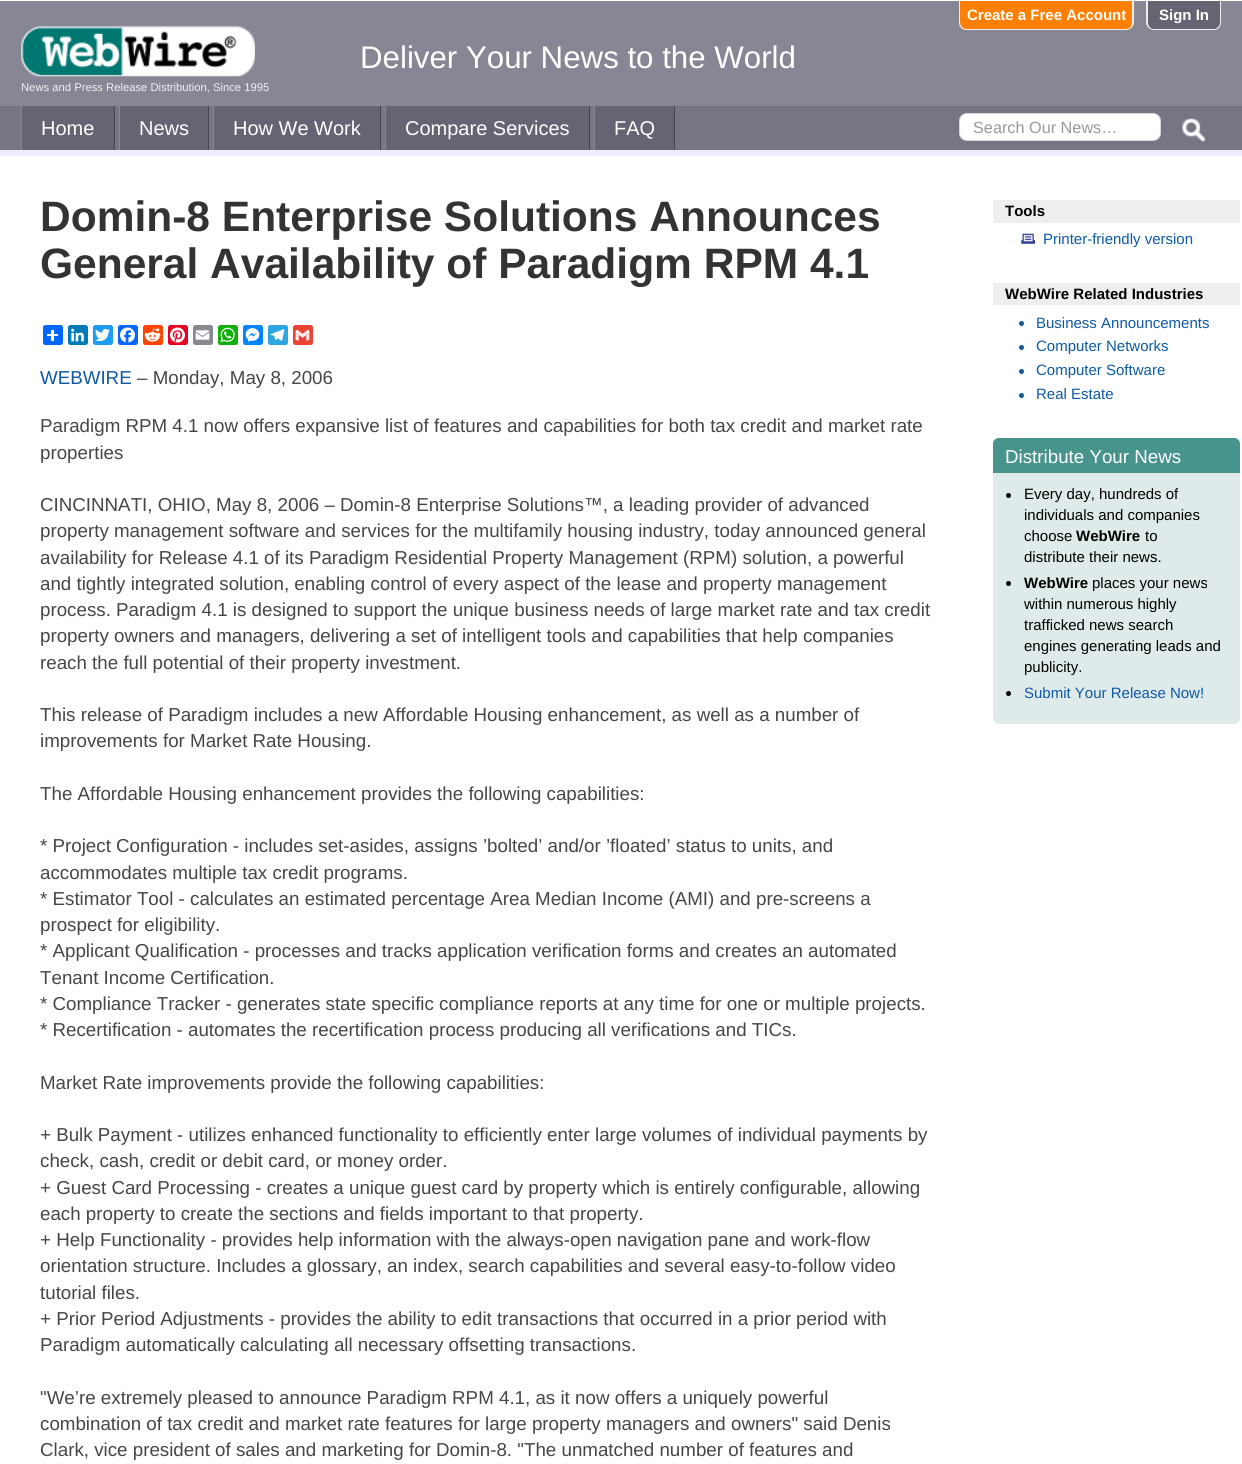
#include <cairo.h>
#include <math.h>
#include <stddef.h>

typedef struct { double x, y; const char *s; } line_t;
typedef struct { double x, y, w, h; unsigned color; } box_t;

static void ink(cairo_t *ctx, unsigned color) {
    cairo_set_source_rgb(ctx, (color >> 16) / 255.0, (color >> 8 & 255) / 255.0, (color & 255) / 255.0);
}

static void round_path(cairo_t *ctx, double x, double y, double w, double h, double r) {
    cairo_new_sub_path(ctx);
    cairo_arc(ctx, x + w - r, y + h - r, r, 0, M_PI / 2);
    cairo_arc(ctx, x + r, y + h - r, r, M_PI / 2, M_PI);
    cairo_arc(ctx, x + r, y + r, r, M_PI, 1.5 * M_PI);
    cairo_arc(ctx, x + w - r, y + r, r, 1.5 * M_PI, 2 * M_PI);
    cairo_close_path(ctx);
}

static void paste(cairo_t *ctx, const char *path, double x, double y, double w, double h) {
    cairo_surface_t *image = cairo_image_surface_create_from_png(path);
    cairo_save(ctx);
    cairo_set_source_surface(ctx, image, x, y);
    cairo_rectangle(ctx, x, y, w, h);
    cairo_fill(ctx);
    cairo_restore(ctx);
    cairo_surface_destroy(image);
}

int main(void) {
    cairo_surface_t *surface = cairo_image_surface_create(CAIRO_FORMAT_RGB24, 1242, 1464);
    cairo_t *ctx = cairo_create(surface);
    cairo_font_options_t *options = cairo_font_options_create();
    cairo_font_options_set_hint_metrics(options, CAIRO_HINT_METRICS_OFF);
    cairo_font_options_set_hint_style(options, CAIRO_HINT_STYLE_NONE);
    cairo_set_font_options(ctx, options);
    cairo_set_miter_limit(ctx, 4);
    ink(ctx, 0xFFFFFF);
    cairo_paint(ctx);
    ink(ctx, 0x868695);
    cairo_rectangle(ctx, 0, 1, 1242, 105);
    cairo_fill(ctx);
    ink(ctx, 0xFF8000);
    cairo_new_path(ctx);
    cairo_move_to(ctx, 959, 1);
    cairo_line_to(ctx, 1134, 1);
    cairo_line_to(ctx, 1134, 22);
    cairo_curve_to(ctx, 1134, 26.5, 1130.5, 30, 1126, 30);
    cairo_line_to(ctx, 967, 30);
    cairo_curve_to(ctx, 962.5, 30, 959, 26.5, 959, 22);
    cairo_close_path(ctx);
    cairo_fill(ctx);
    ink(ctx, 0xEEEEEE);
    cairo_set_fill_rule(ctx, CAIRO_FILL_RULE_EVEN_ODD);
    cairo_new_path(ctx);
    cairo_move_to(ctx, 959, 1);
    cairo_line_to(ctx, 1134, 1);
    cairo_line_to(ctx, 1134, 22);
    cairo_curve_to(ctx, 1134, 27, 1130, 30, 1126, 30);
    cairo_line_to(ctx, 966, 30);
    cairo_curve_to(ctx, 962, 30, 959, 27, 959, 22);
    cairo_close_path(ctx);
    cairo_move_to(ctx, 960, 1);
    cairo_line_to(ctx, 1132, 1);
    cairo_line_to(ctx, 1132, 22);
    cairo_curve_to(ctx, 1132, 26, 1130, 29, 1126, 29);
    cairo_line_to(ctx, 966, 29);
    cairo_curve_to(ctx, 963, 29, 960, 26, 960, 22);
    cairo_close_path(ctx);
    cairo_fill(ctx);
    cairo_select_font_face(ctx, "Liberation Sans", CAIRO_FONT_SLANT_NORMAL, CAIRO_FONT_WEIGHT_BOLD);
    cairo_set_font_size(ctx, 15);
    ink(ctx, 0xFFFFFF);
    cairo_move_to(ctx, 967, 20);
    cairo_show_text(ctx, "Create a Free Account");
    ink(ctx, 0x646473);
    cairo_new_path(ctx);
    cairo_move_to(ctx, 1146, 1);
    cairo_line_to(ctx, 1221, 1);
    cairo_line_to(ctx, 1221, 22);
    cairo_curve_to(ctx, 1221, 26.5, 1217.5, 30, 1213, 30);
    cairo_line_to(ctx, 1154, 30);
    cairo_curve_to(ctx, 1149.5, 30, 1146, 26.5, 1146, 22);
    cairo_close_path(ctx);
    cairo_fill(ctx);
    ink(ctx, 0xEEEEEE);
    cairo_new_path(ctx);
    cairo_move_to(ctx, 1146, 1);
    cairo_line_to(ctx, 1221, 1);
    cairo_line_to(ctx, 1221, 22);
    cairo_curve_to(ctx, 1221, 27, 1218, 30, 1214, 30);
    cairo_line_to(ctx, 1154, 30);
    cairo_curve_to(ctx, 1150, 30, 1146, 27, 1146, 22);
    cairo_close_path(ctx);
    cairo_move_to(ctx, 1148, 1);
    cairo_line_to(ctx, 1220, 1);
    cairo_line_to(ctx, 1220, 22);
    cairo_curve_to(ctx, 1220, 26, 1217, 29, 1214, 29);
    cairo_line_to(ctx, 1154, 29);
    cairo_curve_to(ctx, 1150, 29, 1148, 26, 1148, 22);
    cairo_close_path(ctx);
    cairo_fill(ctx);
    ink(ctx, 0xFFFFFF);
    cairo_move_to(ctx, 1159, 20);
    cairo_show_text(ctx, "Sign In");
    cairo_select_font_face(ctx, "Liberation Sans", CAIRO_FONT_SLANT_NORMAL, CAIRO_FONT_WEIGHT_NORMAL);
    cairo_set_font_size(ctx, 31.25);
    cairo_move_to(ctx, 360, 68);
    cairo_show_text(ctx, "Deliver Your News to the World");
    paste(ctx, "media/1.png", 21, 26, 234, 51);
    cairo_set_font_size(ctx, 11.25);
    ink(ctx, 0xF1F1F1);
    cairo_move_to(ctx, 21, 91);
    cairo_show_text(ctx, "News and Press Release Distribution, Since 1995");
    {
        static const box_t items[] = {
            {0, 106, 1242, 44, 0x757584},
            {0, 150, 1242, 6, 0xECECFB},
            {22, 106, 92, 44, 0x646473},
            {114, 106, 1, 44, 0x424251},
            {21, 106, 1, 44, 0x868695},
        };
        for (size_t i = 0; i < sizeof items / sizeof *items; i++) {
            ink(ctx, items[i].color);
            cairo_rectangle(ctx, items[i].x, items[i].y, items[i].w, items[i].h);
            cairo_fill(ctx);
        }
    }
    cairo_set_font_size(ctx, 20);
    ink(ctx, 0xFFFFFF);
    cairo_move_to(ctx, 41, 135);
    cairo_show_text(ctx, "Home");
    {
        static const box_t items[] = {
            {120, 106, 88, 44, 0x646473},
            {208, 106, 1, 44, 0x424251},
            {119, 106, 1, 44, 0x868695},
        };
        for (size_t i = 0; i < sizeof items / sizeof *items; i++) {
            ink(ctx, items[i].color);
            cairo_rectangle(ctx, items[i].x, items[i].y, items[i].w, items[i].h);
            cairo_fill(ctx);
        }
    }
    ink(ctx, 0xFFFFFF);
    cairo_move_to(ctx, 139, 135);
    cairo_show_text(ctx, "News");
    {
        static const box_t items[] = {
            {214, 106, 166, 44, 0x646473},
            {380, 106, 1, 44, 0x424251},
            {213, 106, 1, 44, 0x868695},
        };
        for (size_t i = 0; i < sizeof items / sizeof *items; i++) {
            ink(ctx, items[i].color);
            cairo_rectangle(ctx, items[i].x, items[i].y, items[i].w, items[i].h);
            cairo_fill(ctx);
        }
    }
    ink(ctx, 0xFFFFFF);
    cairo_move_to(ctx, 233, 135);
    cairo_show_text(ctx, "How We Work");
    {
        static const box_t items[] = {
            {386, 106, 203, 44, 0x646473},
            {589, 106, 1, 44, 0x424251},
            {385, 106, 1, 44, 0x868695},
        };
        for (size_t i = 0; i < sizeof items / sizeof *items; i++) {
            ink(ctx, items[i].color);
            cairo_rectangle(ctx, items[i].x, items[i].y, items[i].w, items[i].h);
            cairo_fill(ctx);
        }
    }
    ink(ctx, 0xFFFFFF);
    cairo_move_to(ctx, 405, 135);
    cairo_show_text(ctx, "Compare Services");
    {
        static const box_t items[] = {
            {595, 106, 79, 44, 0x646473},
            {674, 106, 1, 44, 0x424251},
            {594, 106, 1, 44, 0x868695},
        };
        for (size_t i = 0; i < sizeof items / sizeof *items; i++) {
            ink(ctx, items[i].color);
            cairo_rectangle(ctx, items[i].x, items[i].y, items[i].w, items[i].h);
            cairo_fill(ctx);
        }
    }
    ink(ctx, 0xFFFFFF);
    cairo_move_to(ctx, 614, 135);
    cairo_show_text(ctx, "FAQ");
    round_path(ctx, 959.5, 113.5, 201, 27, 7.5);
    cairo_fill_preserve(ctx);
    ink(ctx, 0xD4DADF);
    cairo_set_line_width(ctx, 1);
    cairo_stroke(ctx);
    cairo_set_font_size(ctx, 16.25);
    ink(ctx, 0x999999);
    cairo_move_to(ctx, 973, 133);
    cairo_show_text(ctx, "Search Our News…");
    paste(ctx, "media/2.png", 1182, 118, 24, 24);
    cairo_select_font_face(ctx, "Liberation Sans", CAIRO_FONT_SLANT_NORMAL, CAIRO_FONT_WEIGHT_BOLD);
    cairo_set_font_size(ctx, 42.5);
    ink(ctx, 0x333333);
    cairo_move_to(ctx, 40, 231);
    cairo_show_text(ctx, "Domin-8 Enterprise Solutions Announces");
    cairo_move_to(ctx, 40, 278);
    cairo_show_text(ctx, "General Availability of Paradigm RPM 4.1");
    ink(ctx, 0x0166FF);
    round_path(ctx, 43, 325, 20, 20, 2.5);
    cairo_fill(ctx);
    ink(ctx, 0xFFFFFF);
    cairo_rectangle(ctx, 51, 330, 3, 11);
    cairo_fill(ctx);
    cairo_rectangle(ctx, 47, 334, 11, 2);
    cairo_fill(ctx);
    ink(ctx, 0x007BB5);
    round_path(ctx, 68, 325, 20, 20, 2.5);
    cairo_fill(ctx);
    paste(ctx, "media/3.png", 71, 328, 13, 14);
    ink(ctx, 0x1D9BF0);
    round_path(ctx, 93, 325, 20, 20, 2.5);
    cairo_fill(ctx);
    paste(ctx, "media/4.png", 95, 328, 15, 14);
    ink(ctx, 0x0866FF);
    round_path(ctx, 118, 325, 20, 20, 2.5);
    cairo_fill(ctx);
    paste(ctx, "media/5.png", 120, 327, 15, 16);
    ink(ctx, 0xFF4500);
    round_path(ctx, 143, 325, 20, 20, 2.5);
    cairo_fill(ctx);
    paste(ctx, "media/6.png", 144, 328, 17, 14);
    ink(ctx, 0xE60023);
    round_path(ctx, 168, 325, 20, 20, 2.5);
    cairo_fill(ctx);
    paste(ctx, "media/7.png", 170, 327, 15, 16);
    ink(ctx, 0x888990);
    round_path(ctx, 193, 325, 20, 20, 2.5);
    cairo_fill(ctx);
    paste(ctx, "media/8.png", 195, 330, 15, 10);
    ink(ctx, 0x12AF0A);
    round_path(ctx, 218, 325, 20, 20, 2.5);
    cairo_fill(ctx);
    paste(ctx, "media/9.png", 220, 327, 15, 16);
    ink(ctx, 0x0084FF);
    round_path(ctx, 243, 325, 20, 20, 2.5);
    cairo_fill(ctx);
    paste(ctx, "media/10.png", 245, 328, 15, 14);
    ink(ctx, 0x2CA5E0);
    round_path(ctx, 268, 325, 20, 20, 2.5);
    cairo_fill(ctx);
    paste(ctx, "media/11.png", 270, 329, 15, 12);
    ink(ctx, 0xEA4335);
    round_path(ctx, 293, 325, 20, 20, 2.5);
    cairo_fill(ctx);
    paste(ctx, "media/12.png", 295, 330, 15, 11);
    cairo_select_font_face(ctx, "Liberation Sans", CAIRO_FONT_SLANT_NORMAL, CAIRO_FONT_WEIGHT_NORMAL);
    cairo_set_font_size(ctx, 18.75);
    ink(ctx, 0x0D59A6);
    cairo_move_to(ctx, 40, 384);
    cairo_show_text(ctx, "WEBWIRE");
    ink(ctx, 0x464646);
    {
        static const line_t items[] = {
            {137, 384, "– Monday, May 8, 2006"},
            {40, 432, "Paradigm RPM 4.1 now offers expansive list of features and capabilities for both tax credit and market rate"},
            {40, 459, "properties"},
            {40, 511, "CINCINNATI, OHIO, May 8, 2006 – Domin-8 Enterprise Solutions™, a leading provider of advanced"},
            {40, 537, "property management software and services for the multifamily housing industry, today announced general"},
            {40, 564, "availability for Release 4.1 of its Paradigm Residential Property Management (RPM) solution, a powerful"},
            {40, 590, "and tightly integrated solution, enabling control of every aspect of the lease and property management"},
            {40, 616, "process. Paradigm 4.1 is designed to support the unique business needs of large market rate and tax credit"},
            {40, 642, "property owners and managers, delivering a set of intelligent tools and capabilities that help companies"},
            {40, 669, "reach the full potential of their property investment."},
            {40, 721, "This release of Paradigm includes a new Affordable Housing enhancement, as well as a number of"},
            {40, 747, "improvements for Market Rate Housing."},
            {40, 800, "The Affordable Housing enhancement provides the following capabilities:"},
            {40, 852, "* Project Configuration - includes set-asides, assigns ’bolted’ and/or ’floated’ status to units, and"},
            {40, 879, "accommodates multiple tax credit programs."},
            {40, 905, "* Estimator Tool - calculates an estimated percentage Area Median Income (AMI) and pre-screens a"},
            {40, 931, "prospect for eligibility."},
            {40, 957, "* Applicant Qualification - processes and tracks application verification forms and creates an automated"},
            {40, 984, "Tenant Income Certification."},
            {40, 1010, "* Compliance Tracker - generates state specific compliance reports at any time for one or multiple projects."},
            {40, 1036, "* Recertification - automates the recertification process producing all verifications and TICs."},
            {40, 1089, "Market Rate improvements provide the following capabilities:"},
            {40, 1141, "+ Bulk Payment - utilizes enhanced functionality to efficiently enter large volumes of individual payments by"},
            {40, 1167, "check, cash, credit or debit card, or money order."},
            {40, 1194, "+ Guest Card Processing - creates a unique guest card by property which is entirely configurable, allowing"},
            {40, 1220, "each property to create the sections and fields important to that property."},
            {40, 1246, "+ Help Functionality - provides help information with the always-open navigation pane and work-flow"},
            {40, 1272, "orientation structure. Includes a glossary, an index, search capabilities and several easy-to-follow video"},
            {40, 1299, "tutorial files."},
            {40, 1325, "+ Prior Period Adjustments - provides the ability to edit transactions that occurred in a prior period with"},
            {40, 1351, "Paradigm automatically calculating all necessary offsetting transactions."},
            {40, 1404, "\"We’re extremely pleased to announce Paradigm RPM 4.1, as it now offers a uniquely powerful"},
            {40, 1430, "combination of tax credit and market rate features for large property managers and owners\" said Denis"},
            {40, 1456, "Clark, vice president of sales and marketing for Domin-8. \"The unmatched number of features and"},
        };
        for (size_t i = 0; i < sizeof items / sizeof *items; i++) {
            cairo_move_to(ctx, items[i].x, items[i].y);
            cairo_show_text(ctx, items[i].s);
        }
    }
    ink(ctx, 0xEEEEEE);
    cairo_rectangle(ctx, 993, 200, 247, 23);
    cairo_fill(ctx);
    cairo_select_font_face(ctx, "Liberation Sans", CAIRO_FONT_SLANT_NORMAL, CAIRO_FONT_WEIGHT_BOLD);
    cairo_set_font_size(ctx, 15);
    ink(ctx, 0x000000);
    cairo_move_to(ctx, 1005, 216);
    cairo_show_text(ctx, "Tools");
    paste(ctx, "media/13.png", 1021, 233, 14, 11);
    cairo_select_font_face(ctx, "Liberation Sans", CAIRO_FONT_SLANT_NORMAL, CAIRO_FONT_WEIGHT_NORMAL);
    ink(ctx, 0x0D59A6);
    cairo_move_to(ctx, 1043, 244);
    cairo_show_text(ctx, "Printer-friendly version");
    ink(ctx, 0xEEEEEE);
    cairo_rectangle(ctx, 993, 283, 247, 22);
    cairo_fill(ctx);
    cairo_select_font_face(ctx, "Liberation Sans", CAIRO_FONT_SLANT_NORMAL, CAIRO_FONT_WEIGHT_BOLD);
    ink(ctx, 0x000000);
    cairo_move_to(ctx, 1005, 299);
    cairo_show_text(ctx, "WebWire Related Industries");
    ink(ctx, 0x0D59A6);
    cairo_new_path(ctx);
    cairo_arc(ctx, 1021.5, 323.5, 2.5, 0, 2 * M_PI);
    cairo_fill(ctx);
    cairo_select_font_face(ctx, "Liberation Sans", CAIRO_FONT_SLANT_NORMAL, CAIRO_FONT_WEIGHT_NORMAL);
    cairo_move_to(ctx, 1036, 328);
    cairo_show_text(ctx, "Business Announcements");
    cairo_new_path(ctx);
    cairo_arc(ctx, 1021.5, 347.5, 2.5, 0, 2 * M_PI);
    cairo_fill(ctx);
    cairo_move_to(ctx, 1036, 351);
    cairo_show_text(ctx, "Computer Networks");
    cairo_new_path(ctx);
    cairo_arc(ctx, 1021.5, 371.5, 2.5, 0, 2 * M_PI);
    cairo_fill(ctx);
    cairo_move_to(ctx, 1036, 375);
    cairo_show_text(ctx, "Computer Software");
    cairo_new_path(ctx);
    cairo_arc(ctx, 1021.5, 395.5, 2.5, 0, 2 * M_PI);
    cairo_fill(ctx);
    cairo_move_to(ctx, 1036, 399);
    cairo_show_text(ctx, "Real Estate");
    ink(ctx, 0xDFEBEA);
    round_path(ctx, 993, 438, 247, 286, 6);
    cairo_fill(ctx);
    ink(ctx, 0x47948C);
    cairo_new_path(ctx);
    cairo_move_to(ctx, 999, 438);
    cairo_line_to(ctx, 1234, 438);
    cairo_curve_to(ctx, 1237.5, 438, 1240, 440.5, 1240, 444);
    cairo_line_to(ctx, 1240, 473);
    cairo_line_to(ctx, 993, 473);
    cairo_line_to(ctx, 993, 444);
    cairo_curve_to(ctx, 993, 440.5, 995.5, 438, 999, 438);
    cairo_close_path(ctx);
    cairo_fill(ctx);
    cairo_set_font_size(ctx, 18.75);
    ink(ctx, 0xFFFFFF);
    cairo_move_to(ctx, 1005, 463);
    cairo_show_text(ctx, "Distribute Your News");
    ink(ctx, 0x000000);
    cairo_new_path(ctx);
    cairo_arc(ctx, 1008.5, 495.5, 2.5, 0, 2 * M_PI);
    cairo_fill(ctx);
    cairo_set_font_size(ctx, 15);
    {
        static const line_t items[] = {
            {1024, 499, "Every day, hundreds of"},
            {1024, 520, "individuals and companies"},
            {1024, 541, "choose"},
        };
        for (size_t i = 0; i < sizeof items / sizeof *items; i++) {
            cairo_move_to(ctx, items[i].x, items[i].y);
            cairo_show_text(ctx, items[i].s);
        }
    }
    cairo_select_font_face(ctx, "Liberation Sans", CAIRO_FONT_SLANT_NORMAL, CAIRO_FONT_WEIGHT_BOLD);
    cairo_move_to(ctx, 1076, 541);
    cairo_show_text(ctx, "WebWire");
    cairo_select_font_face(ctx, "Liberation Sans", CAIRO_FONT_SLANT_NORMAL, CAIRO_FONT_WEIGHT_NORMAL);
    cairo_move_to(ctx, 1145, 541);
    cairo_show_text(ctx, "to");
    cairo_move_to(ctx, 1024, 562);
    cairo_show_text(ctx, "distribute their news.");
    cairo_new_path(ctx);
    cairo_arc(ctx, 1008.5, 583.5, 2.5, 0, 2 * M_PI);
    cairo_fill(ctx);
    cairo_select_font_face(ctx, "Liberation Sans", CAIRO_FONT_SLANT_NORMAL, CAIRO_FONT_WEIGHT_BOLD);
    cairo_move_to(ctx, 1024, 588);
    cairo_show_text(ctx, "WebWire");
    cairo_select_font_face(ctx, "Liberation Sans", CAIRO_FONT_SLANT_NORMAL, CAIRO_FONT_WEIGHT_NORMAL);
    {
        static const line_t items[] = {
            {1092, 588, "places your news"},
            {1024, 609, "within numerous highly"},
            {1024, 630, "trafficked news search"},
            {1024, 651, "engines generating leads and"},
            {1024, 672, "publicity."},
        };
        for (size_t i = 0; i < sizeof items / sizeof *items; i++) {
            cairo_move_to(ctx, items[i].x, items[i].y);
            cairo_show_text(ctx, items[i].s);
        }
    }
    cairo_new_path(ctx);
    cairo_arc(ctx, 1008.5, 693.5, 2.5, 0, 2 * M_PI);
    cairo_fill(ctx);
    ink(ctx, 0x0D59A6);
    cairo_move_to(ctx, 1024, 698);
    cairo_show_text(ctx, "Submit Your Release Now!");
    cairo_surface_write_to_png(surface, "image.png");
    cairo_font_options_destroy(options);
    cairo_destroy(ctx);
    cairo_surface_destroy(surface);
    return 0;
}
